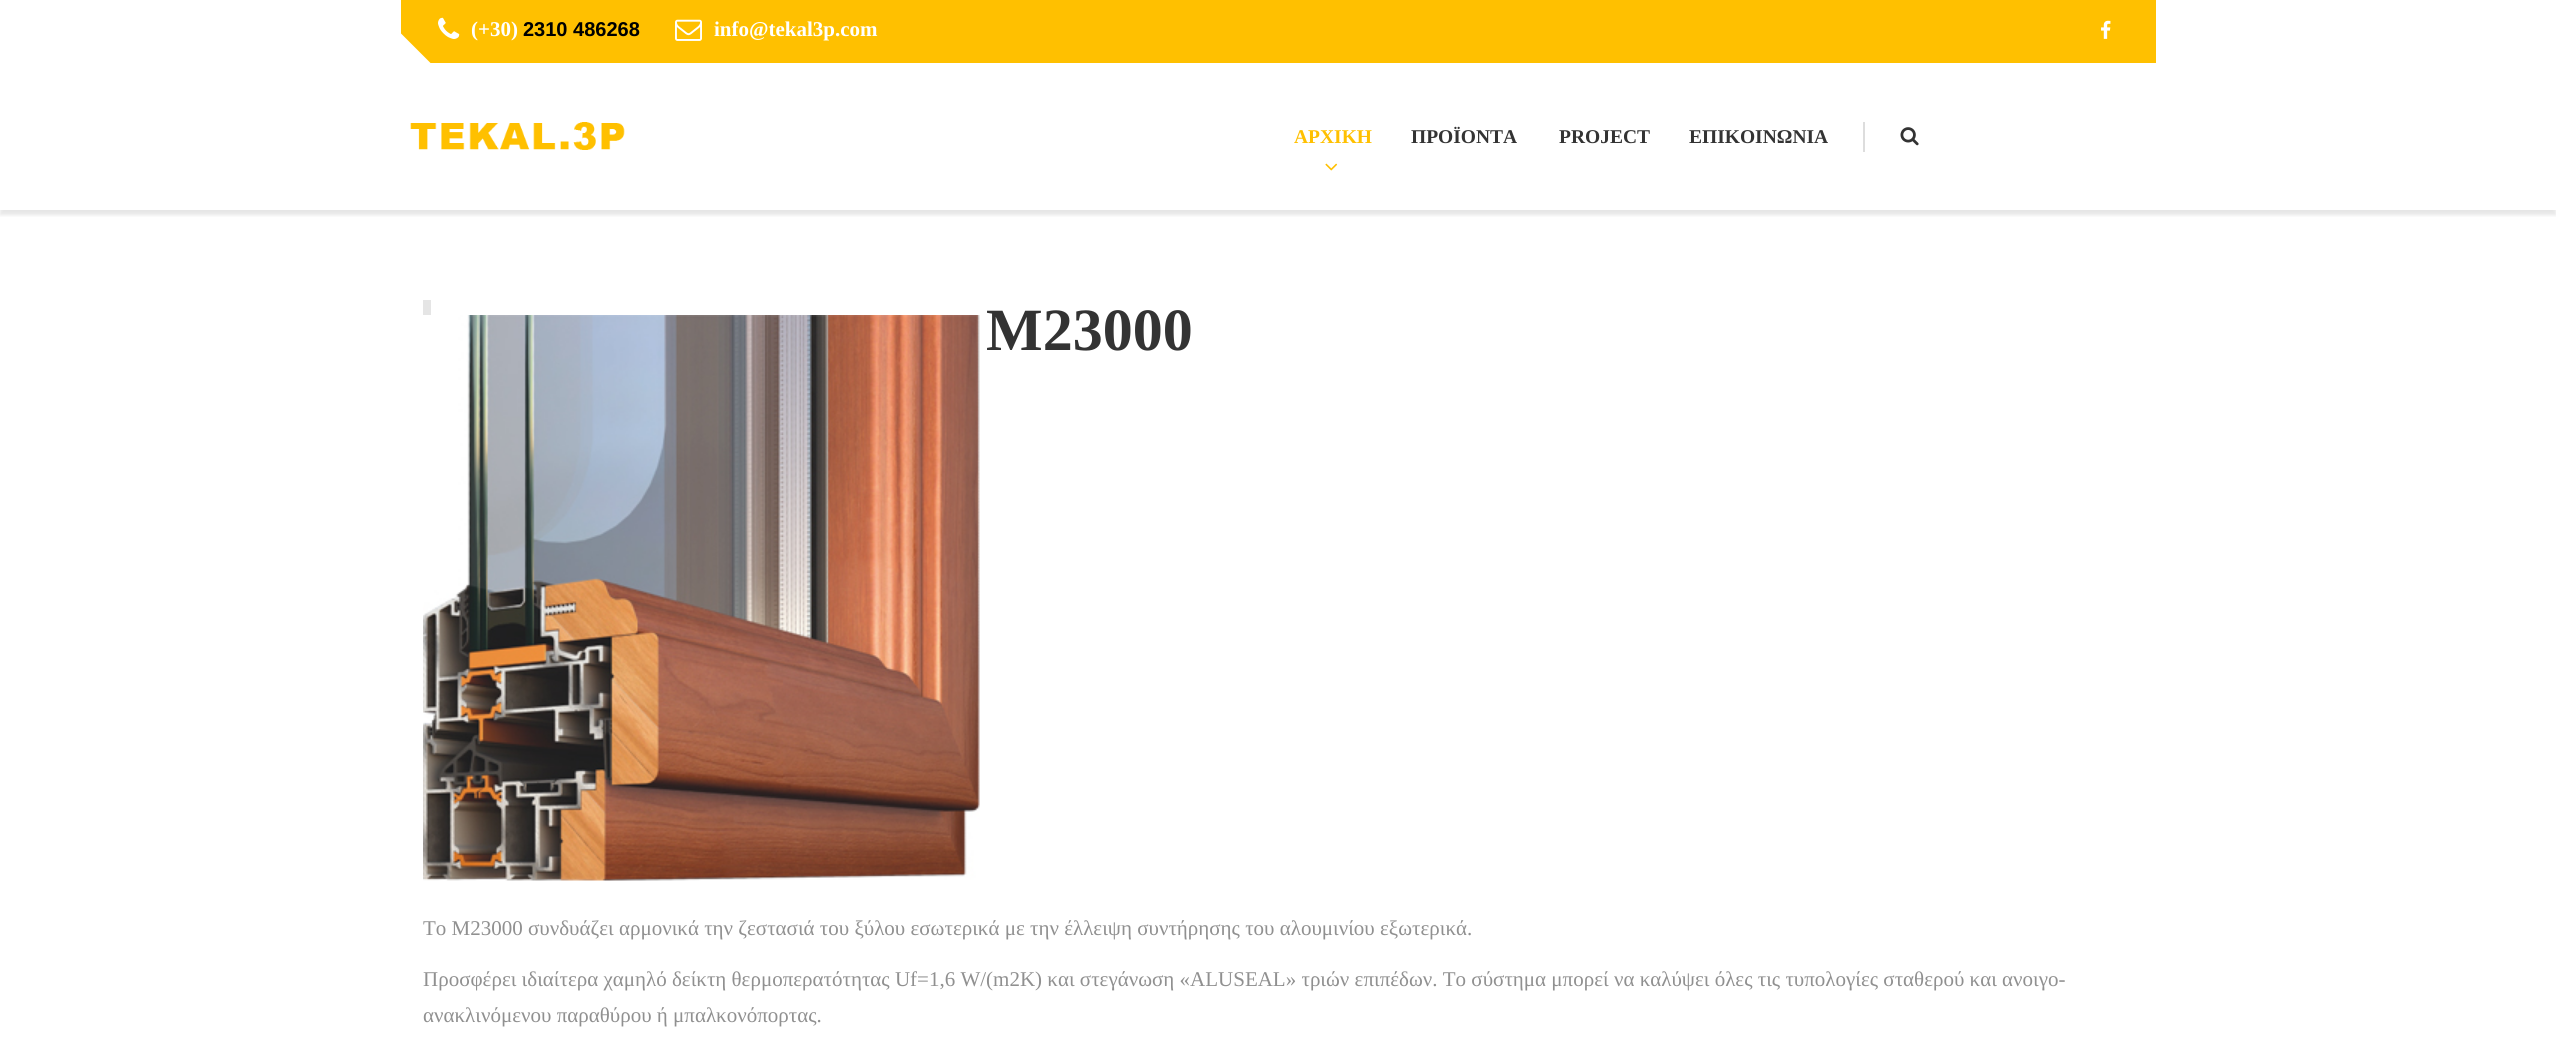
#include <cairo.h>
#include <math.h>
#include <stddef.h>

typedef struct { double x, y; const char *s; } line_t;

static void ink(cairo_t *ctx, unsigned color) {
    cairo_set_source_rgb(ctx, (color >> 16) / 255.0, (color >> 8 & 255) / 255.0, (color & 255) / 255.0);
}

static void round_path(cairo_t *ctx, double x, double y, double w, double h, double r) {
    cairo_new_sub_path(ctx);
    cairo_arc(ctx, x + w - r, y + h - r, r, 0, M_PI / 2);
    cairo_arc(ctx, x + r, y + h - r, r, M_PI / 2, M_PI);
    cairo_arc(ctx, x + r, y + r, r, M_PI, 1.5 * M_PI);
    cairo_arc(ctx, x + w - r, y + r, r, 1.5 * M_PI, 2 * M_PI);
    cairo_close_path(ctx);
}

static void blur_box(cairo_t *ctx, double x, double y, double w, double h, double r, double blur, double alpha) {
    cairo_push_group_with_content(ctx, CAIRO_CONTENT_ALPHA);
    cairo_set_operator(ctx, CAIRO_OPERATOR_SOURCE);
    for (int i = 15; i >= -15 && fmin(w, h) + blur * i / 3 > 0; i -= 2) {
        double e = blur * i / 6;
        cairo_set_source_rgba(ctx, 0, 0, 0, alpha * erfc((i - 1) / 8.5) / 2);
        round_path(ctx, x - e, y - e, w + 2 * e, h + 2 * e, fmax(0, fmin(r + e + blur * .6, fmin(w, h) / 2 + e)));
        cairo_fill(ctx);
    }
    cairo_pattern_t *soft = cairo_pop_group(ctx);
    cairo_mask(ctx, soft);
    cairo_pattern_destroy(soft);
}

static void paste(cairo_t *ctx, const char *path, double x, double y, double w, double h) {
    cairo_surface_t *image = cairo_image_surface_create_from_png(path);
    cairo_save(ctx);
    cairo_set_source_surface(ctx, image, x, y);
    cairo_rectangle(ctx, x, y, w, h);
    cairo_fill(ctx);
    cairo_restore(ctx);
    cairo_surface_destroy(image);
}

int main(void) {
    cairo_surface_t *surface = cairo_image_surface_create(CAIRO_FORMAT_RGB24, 2556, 1040);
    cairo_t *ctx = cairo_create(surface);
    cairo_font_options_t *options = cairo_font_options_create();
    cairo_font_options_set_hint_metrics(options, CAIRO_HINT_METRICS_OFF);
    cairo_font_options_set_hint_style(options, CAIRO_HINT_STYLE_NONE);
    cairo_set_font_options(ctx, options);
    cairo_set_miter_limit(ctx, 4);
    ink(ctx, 0xFFFFFF);
    cairo_paint(ctx);
    cairo_save(ctx);
    cairo_rectangle(ctx, 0, 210, 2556, 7);
    cairo_clip(ctx);
    ink(ctx, 0x000000);
    blur_box(ctx, 0, 68, 2556, 147, 0, 2, 0.1);
    cairo_restore(ctx);
    ink(ctx, 0xFFC000);
    cairo_rectangle(ctx, 401, 0, 1755, 63);
    cairo_fill(ctx);
    paste(ctx, "media/1.png", 438, 17, 22, 22);
    cairo_select_font_face(ctx, "Liberation Serif", CAIRO_FONT_SLANT_NORMAL, CAIRO_FONT_WEIGHT_BOLD);
    cairo_set_font_size(ctx, 21);
    ink(ctx, 0xFFFFFF);
    cairo_move_to(ctx, 471, 36);
    cairo_show_text(ctx, "(+30)");
    cairo_select_font_face(ctx, "Liberation Sans", CAIRO_FONT_SLANT_NORMAL, CAIRO_FONT_WEIGHT_BOLD);
    cairo_set_font_size(ctx, 20);
    ink(ctx, 0x000000);
    cairo_move_to(ctx, 523, 36);
    cairo_show_text(ctx, "2310 486268");
    paste(ctx, "media/2.png", 675, 19, 27, 22);
    cairo_select_font_face(ctx, "Liberation Serif", CAIRO_FONT_SLANT_NORMAL, CAIRO_FONT_WEIGHT_BOLD);
    cairo_set_font_size(ctx, 21);
    ink(ctx, 0xFFFFFF);
    cairo_move_to(ctx, 714, 36);
    cairo_show_text(ctx, "info@tekal3p.com");
    paste(ctx, "media/3.png", 2101, 20, 10, 19);
    cairo_new_path(ctx);
    cairo_move_to(ctx, 430.5, 63);
    cairo_line_to(ctx, 400.5, 63);
    cairo_line_to(ctx, 400.5, 33);
    cairo_close_path(ctx);
    cairo_fill(ctx);
    paste(ctx, "media/4.png", 410, 122, 215, 28);
    cairo_set_font_size(ctx, 19.5);
    ink(ctx, 0xFFC000);
    cairo_move_to(ctx, 1294, 143);
    cairo_show_text(ctx, "ΑΡΧΙΚΗ");
    paste(ctx, "media/5.png", 1325, 163, 13, 8);
    ink(ctx, 0x333333);
    {
        static const line_t items[] = {
            {1411, 143, "ΠΡΟΪΟΝΤΑ"},
            {1559, 143, "PROJECT"},
            {1689, 143, "ΕΠΙΚΟΙΝΩΝΙΑ"},
        };
        for (size_t i = 0; i < sizeof items / sizeof *items; i++) {
            cairo_move_to(ctx, items[i].x, items[i].y);
            cairo_show_text(ctx, items[i].s);
        }
    }
    ink(ctx, 0xDDDDDD);
    cairo_rectangle(ctx, 1863, 122, 2, 30);
    cairo_fill(ctx);
    paste(ctx, "media/6.png", 1900, 127, 19, 19);
    paste(ctx, "media/7.png", 423, 315, 557, 566);
    ink(ctx, 0xE5E5E5);
    cairo_rectangle(ctx, 423, 300, 8, 15);
    cairo_fill(ctx);
    cairo_set_font_size(ctx, 60);
    ink(ctx, 0x333333);
    cairo_move_to(ctx, 986, 350);
    cairo_show_text(ctx, "M23000");
    cairo_select_font_face(ctx, "Liberation Serif", CAIRO_FONT_SLANT_NORMAL, CAIRO_FONT_WEIGHT_NORMAL);
    cairo_set_font_size(ctx, 21);
    ink(ctx, 0x909090);
    {
        static const line_t items[] = {
            {423, 935, "Το M23000 συνδυάζει αρμονικά την ζεστασιά του ξύλου εσωτερικά με την έλλειψη συντήρησης του αλουμινίου εξωτερικά."},
            {423, 986, "Προσφέρει ιδιαίτερα χαμηλό δείκτη θερμοπερατότητας Uf=1,6 W/(m2K) και στεγάνωση «ALUSEAL» τριών επιπέδων. Το σύστημα μπορεί να καλύψει όλες τις τυπολογίες σταθερού και ανοιγο-"},
            {423, 1022, "ανακλινόμενου παραθύρου ή μπαλκονόπορτας."},
        };
        for (size_t i = 0; i < sizeof items / sizeof *items; i++) {
            cairo_move_to(ctx, items[i].x, items[i].y);
            cairo_show_text(ctx, items[i].s);
        }
    }
    cairo_surface_write_to_png(surface, "image.png");
    cairo_font_options_destroy(options);
    cairo_destroy(ctx);
    cairo_surface_destroy(surface);
    return 0;
}
